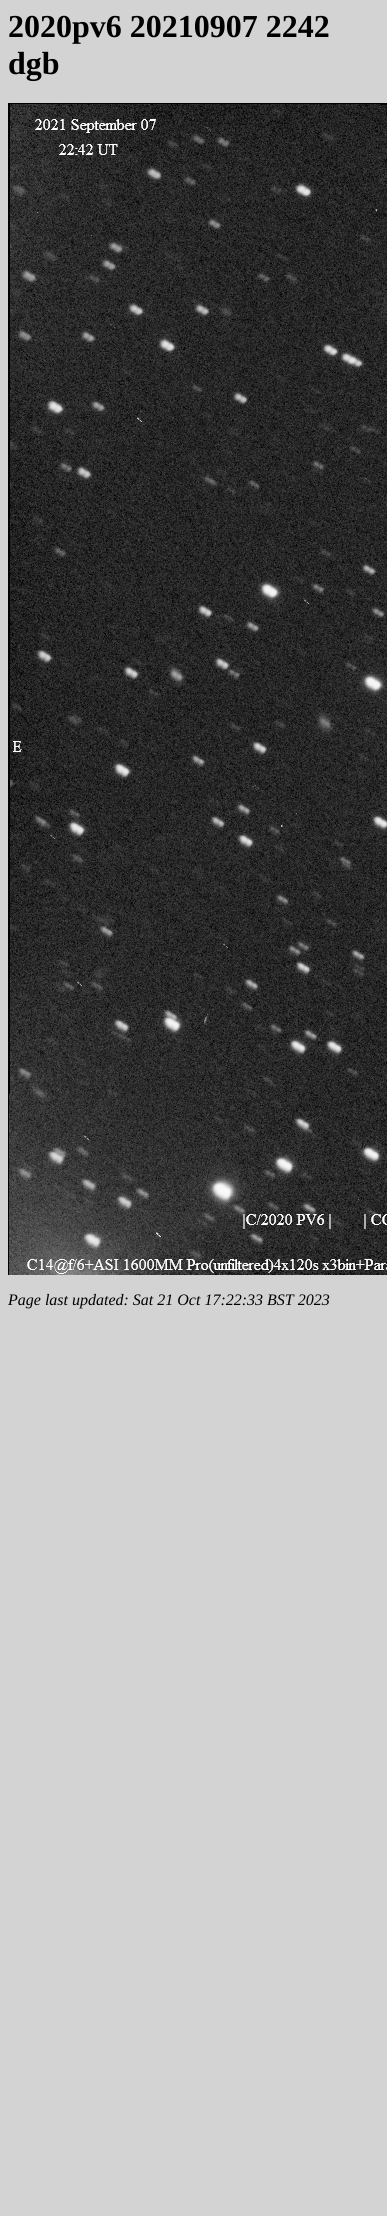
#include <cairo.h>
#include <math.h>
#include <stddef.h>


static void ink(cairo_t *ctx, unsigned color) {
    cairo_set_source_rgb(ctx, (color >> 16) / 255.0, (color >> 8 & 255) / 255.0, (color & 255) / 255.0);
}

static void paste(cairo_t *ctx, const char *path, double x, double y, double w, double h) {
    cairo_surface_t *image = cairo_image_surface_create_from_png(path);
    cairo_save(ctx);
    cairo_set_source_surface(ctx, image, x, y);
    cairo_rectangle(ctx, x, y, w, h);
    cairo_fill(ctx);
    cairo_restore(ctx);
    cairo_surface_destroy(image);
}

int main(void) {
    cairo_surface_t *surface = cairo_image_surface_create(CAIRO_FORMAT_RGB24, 387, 2216);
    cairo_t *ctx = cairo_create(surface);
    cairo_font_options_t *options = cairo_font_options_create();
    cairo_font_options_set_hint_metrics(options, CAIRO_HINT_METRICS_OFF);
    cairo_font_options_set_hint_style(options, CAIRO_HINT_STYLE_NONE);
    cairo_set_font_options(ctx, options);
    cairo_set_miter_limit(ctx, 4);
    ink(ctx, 0xD3D3D3);
    cairo_paint(ctx);
    cairo_select_font_face(ctx, "Liberation Serif", CAIRO_FONT_SLANT_NORMAL, CAIRO_FONT_WEIGHT_BOLD);
    cairo_set_font_size(ctx, 32);
    ink(ctx, 0x000000);
    cairo_move_to(ctx, 8, 37);
    cairo_show_text(ctx, "2020pv6 20210907 2242");
    cairo_move_to(ctx, 8, 74);
    cairo_show_text(ctx, "dgb");
    paste(ctx, "media/1.png", 8, 103, 379, 1172);
    cairo_select_font_face(ctx, "Liberation Serif", CAIRO_FONT_SLANT_ITALIC, CAIRO_FONT_WEIGHT_NORMAL);
    cairo_set_font_size(ctx, 16);
    cairo_move_to(ctx, 8, 1305);
    cairo_show_text(ctx, "Page last updated: Sat 21 Oct 17:22:33 BST 2023");
    cairo_surface_write_to_png(surface, "image.png");
    cairo_font_options_destroy(options);
    cairo_destroy(ctx);
    cairo_surface_destroy(surface);
    return 0;
}
